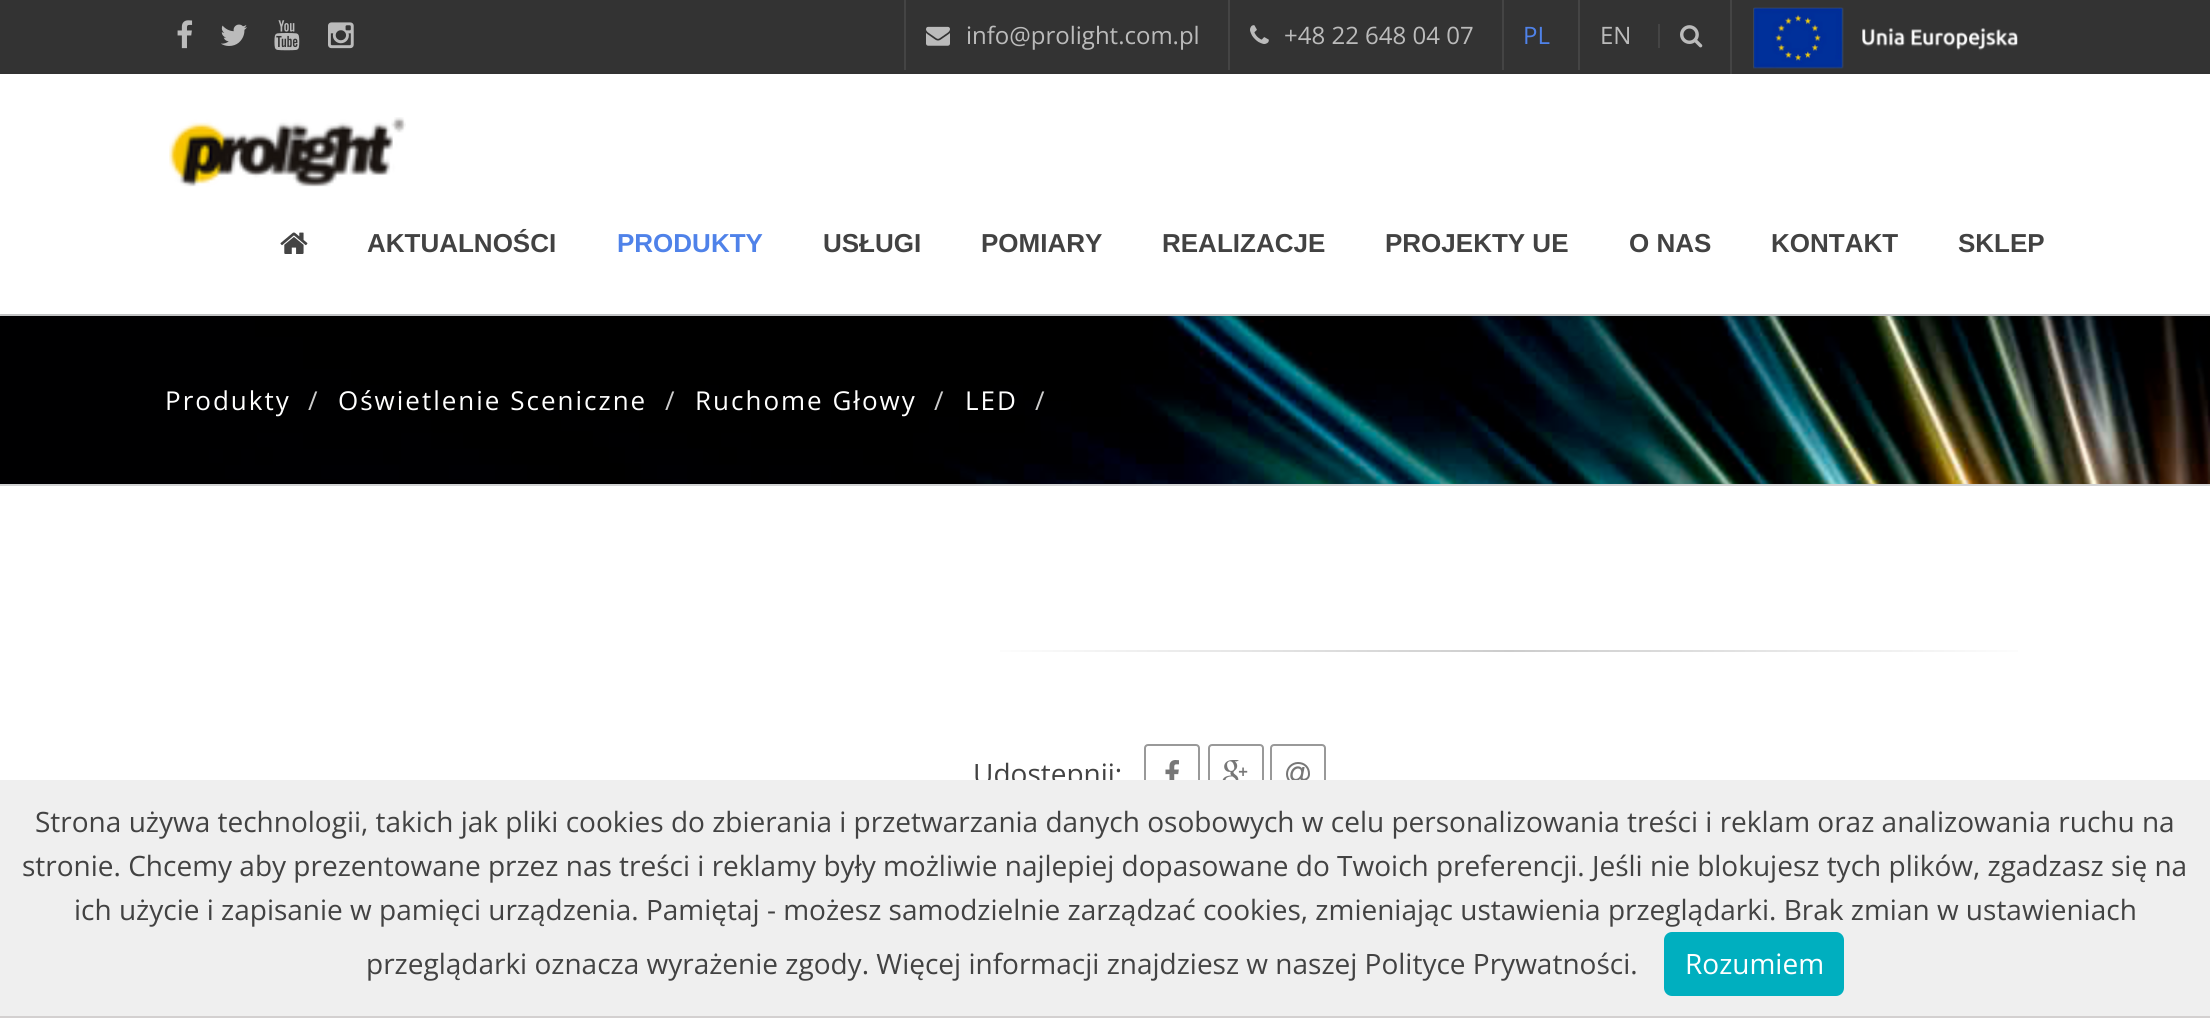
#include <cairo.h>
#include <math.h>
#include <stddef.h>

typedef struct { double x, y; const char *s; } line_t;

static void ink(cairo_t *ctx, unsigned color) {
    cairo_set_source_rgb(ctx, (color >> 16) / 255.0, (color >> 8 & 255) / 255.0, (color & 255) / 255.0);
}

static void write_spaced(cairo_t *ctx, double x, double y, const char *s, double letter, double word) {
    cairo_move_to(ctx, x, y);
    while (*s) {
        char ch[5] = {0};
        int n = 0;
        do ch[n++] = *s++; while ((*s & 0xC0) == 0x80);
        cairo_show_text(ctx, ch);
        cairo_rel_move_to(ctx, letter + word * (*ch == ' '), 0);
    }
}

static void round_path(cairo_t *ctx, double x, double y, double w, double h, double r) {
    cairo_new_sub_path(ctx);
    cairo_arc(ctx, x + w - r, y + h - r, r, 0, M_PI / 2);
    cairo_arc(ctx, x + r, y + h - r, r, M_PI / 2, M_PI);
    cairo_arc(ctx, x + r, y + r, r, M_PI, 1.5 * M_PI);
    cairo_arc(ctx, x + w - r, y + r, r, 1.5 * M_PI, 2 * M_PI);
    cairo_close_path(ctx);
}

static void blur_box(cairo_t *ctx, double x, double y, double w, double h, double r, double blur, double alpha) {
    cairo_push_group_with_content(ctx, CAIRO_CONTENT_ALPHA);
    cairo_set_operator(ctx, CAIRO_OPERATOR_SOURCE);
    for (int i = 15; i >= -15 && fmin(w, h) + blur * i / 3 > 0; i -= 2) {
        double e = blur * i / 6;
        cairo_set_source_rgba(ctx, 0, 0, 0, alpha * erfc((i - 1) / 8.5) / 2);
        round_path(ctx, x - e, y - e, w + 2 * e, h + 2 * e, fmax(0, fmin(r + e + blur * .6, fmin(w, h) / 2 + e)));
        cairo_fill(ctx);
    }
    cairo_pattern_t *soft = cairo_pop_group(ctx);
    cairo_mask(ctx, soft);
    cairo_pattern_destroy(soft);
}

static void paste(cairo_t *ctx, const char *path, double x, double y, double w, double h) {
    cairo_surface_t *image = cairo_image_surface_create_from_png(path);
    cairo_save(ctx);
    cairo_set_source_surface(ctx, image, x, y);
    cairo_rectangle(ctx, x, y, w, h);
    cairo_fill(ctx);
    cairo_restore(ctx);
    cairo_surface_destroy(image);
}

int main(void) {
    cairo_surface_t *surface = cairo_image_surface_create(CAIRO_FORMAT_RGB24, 2210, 1018);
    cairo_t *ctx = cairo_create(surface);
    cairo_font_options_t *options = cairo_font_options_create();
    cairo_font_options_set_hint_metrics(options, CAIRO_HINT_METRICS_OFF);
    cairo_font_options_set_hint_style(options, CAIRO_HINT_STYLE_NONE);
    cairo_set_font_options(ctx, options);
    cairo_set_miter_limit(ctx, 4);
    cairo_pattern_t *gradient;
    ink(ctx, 0xFFFFFF);
    cairo_paint(ctx);
    ink(ctx, 0x333333);
    cairo_rectangle(ctx, 0, 0, 2210, 74);
    cairo_fill(ctx);
    paste(ctx, "media/1.png", 177, 20, 16, 29);
    paste(ctx, "media/2.png", 221, 24, 26, 22);
    paste(ctx, "media/3.png", 274, 20, 26, 31);
    paste(ctx, "media/4.png", 328, 22, 26, 27);
    ink(ctx, 0x444444);
    cairo_rectangle(ctx, 904, 0, 2, 70);
    cairo_fill(ctx);
    paste(ctx, "media/5.png", 926, 26, 24, 20);
    cairo_select_font_face(ctx, "Open Sans", CAIRO_FONT_SLANT_NORMAL, CAIRO_FONT_WEIGHT_NORMAL);
    cairo_set_font_size(ctx, 24);
    ink(ctx, 0xBBBBBB);
    cairo_move_to(ctx, 966, 44);
    cairo_show_text(ctx, "info@prolight.com.pl");
    ink(ctx, 0x444444);
    cairo_rectangle(ctx, 1228, 0, 2, 70);
    cairo_fill(ctx);
    paste(ctx, "media/6.png", 1250, 25, 19, 19);
    ink(ctx, 0xBBBBBB);
    cairo_move_to(ctx, 1284, 44);
    cairo_show_text(ctx, "+48 22 648 04 07");
    ink(ctx, 0x444444);
    cairo_rectangle(ctx, 1502, 0, 2, 70);
    cairo_fill(ctx);
    ink(ctx, 0x4F82E9);
    cairo_move_to(ctx, 1523, 44);
    cairo_show_text(ctx, "PL");
    ink(ctx, 0x444444);
    cairo_rectangle(ctx, 1578, 0, 2, 70);
    cairo_fill(ctx);
    ink(ctx, 0xBBBBBB);
    cairo_move_to(ctx, 1600, 44);
    cairo_show_text(ctx, "EN");
    ink(ctx, 0x444444);
    cairo_rectangle(ctx, 1658, 24, 2, 24);
    cairo_fill(ctx);
    paste(ctx, "media/7.png", 1680, 25, 23, 23);
    cairo_rectangle(ctx, 1730, 0, 2, 74);
    cairo_fill(ctx);
    paste(ctx, "media/8.png", 1753, 7, 265, 62);
    paste(ctx, "media/11.png", 0, 316, 2210, 168);
    ink(ctx, 0xD2D3D4);
    cairo_rectangle(ctx, 0, 314, 2210, 2);
    cairo_fill(ctx);
    cairo_save(ctx);
    cairo_set_fill_rule(ctx, CAIRO_FILL_RULE_EVEN_ODD);
    cairo_new_path(ctx);
    cairo_move_to(ctx, 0, 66);
    cairo_line_to(ctx, 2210, 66);
    cairo_line_to(ctx, 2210, 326);
    cairo_line_to(ctx, 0, 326);
    cairo_close_path(ctx);
    cairo_move_to(ctx, 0, 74);
    cairo_line_to(ctx, 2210, 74);
    cairo_line_to(ctx, 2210, 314);
    cairo_line_to(ctx, 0, 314);
    cairo_close_path(ctx);
    cairo_clip(ctx);
    ink(ctx, 0x000000);
    blur_box(ctx, 0, 76, 2210, 240, 0, 3, 0.12);
    cairo_restore(ctx);
    paste(ctx, "media/9.png", 169, 117, 237, 70);
    paste(ctx, "media/10.png", 280, 232, 28, 22);
    cairo_select_font_face(ctx, "Liberation Sans", CAIRO_FONT_SLANT_NORMAL, CAIRO_FONT_WEIGHT_BOLD);
    cairo_set_font_size(ctx, 26);
    ink(ctx, 0x424242);
    cairo_move_to(ctx, 367, 252);
    cairo_show_text(ctx, "AKTUALNOŚCI");
    ink(ctx, 0x4F82E9);
    cairo_move_to(ctx, 617, 252);
    cairo_show_text(ctx, "PRODUKTY");
    ink(ctx, 0x424242);
    {
        static const line_t items[] = {
            {823, 252, "USŁUGI"},
            {981, 252, "POMIARY"},
            {1162, 252, "REALIZACJE"},
            {1385, 252, "PROJEKTY UE"},
            {1629, 252, "O NAS"},
            {1771, 252, "KONTAKT"},
            {1958, 252, "SKLEP"},
        };
        for (size_t i = 0; i < sizeof items / sizeof *items; i++) {
            cairo_move_to(ctx, items[i].x, items[i].y);
            cairo_show_text(ctx, items[i].s);
        }
    }
    ink(ctx, 0xD2D3D4);
    cairo_rectangle(ctx, 0, 484, 2210, 2);
    cairo_fill(ctx);
    cairo_select_font_face(ctx, "Open Sans", CAIRO_FONT_SLANT_NORMAL, CAIRO_FONT_WEIGHT_NORMAL);
    ink(ctx, 0xFFFFFF);
    write_spaced(ctx, 165, 410, "Produkty", 2, 0);
    ink(ctx, 0xCCCCCC);
    write_spaced(ctx, 308, 410, "/", 2, 0);
    ink(ctx, 0xFFFFFF);
    write_spaced(ctx, 338, 410, "Oświetlenie Sceniczne", 2, 0);
    ink(ctx, 0xCCCCCC);
    write_spaced(ctx, 665, 410, "/", 2, 0);
    ink(ctx, 0xFFFFFF);
    write_spaced(ctx, 695, 410, "Ruchome Głowy", 2, 0);
    ink(ctx, 0xCCCCCC);
    write_spaced(ctx, 934, 410, "/", 2, 0);
    ink(ctx, 0xFFFFFF);
    write_spaced(ctx, 965, 410, "LED", 2, 0);
    ink(ctx, 0xCCCCCC);
    write_spaced(ctx, 1035, 410, "/", 2, 0);
    gradient = cairo_pattern_create_linear(974, 651, 2044, 651);
    cairo_pattern_add_color_stop_rgba(gradient, 0, 1, 1, 1, 1);
    cairo_pattern_add_color_stop_rgba(gradient, 0.5, 0.8, 0.8, 0.8, 1);
    cairo_pattern_add_color_stop_rgba(gradient, 1, 1, 1, 1, 1);
    cairo_set_source(ctx, gradient);
    cairo_pattern_destroy(gradient);
    cairo_rectangle(ctx, 1000, 650, 1018, 2);
    cairo_fill(ctx);
    cairo_set_font_size(ctx, 28);
    ink(ctx, 0x424242);
    cairo_move_to(ctx, 973, 784);
    cairo_show_text(ctx, "Udostępnij:");
    round_path(ctx, 1145, 745, 54, 54, 3);
    ink(ctx, 0x999999);
    cairo_stroke(ctx);
    paste(ctx, "media/12.png", 1165, 760, 14, 20);
    round_path(ctx, 1209, 745, 54, 54, 3);
    cairo_stroke(ctx);
    paste(ctx, "media/13.png", 1222, 760, 26, 20);
    round_path(ctx, 1271, 745, 54, 54, 3);
    cairo_stroke(ctx);
    paste(ctx, "media/14.png", 1286, 762, 24, 18);
    ink(ctx, 0xEFEFEF);
    cairo_rectangle(ctx, 0, 780, 2210, 236);
    cairo_fill(ctx);
    ink(ctx, 0xD3D0D0);
    cairo_rectangle(ctx, 0, 1016, 2210, 2);
    cairo_fill(ctx);
    ink(ctx, 0x424242);
    {
        static const line_t items[] = {
            {35, 832, "Strona używa technologii, takich jak pliki cookies do zbierania i przetwarzania danych osobowych w celu personalizowania treści i reklam oraz analizowania ruchu na"},
            {22, 876, "stronie. Chcemy aby prezentowane przez nas treści i reklamy były możliwie najlepiej dopasowane do Twoich preferencji. Jeśli nie blokujesz tych plików, zgadzasz się na"},
            {74, 920, "ich użycie i zapisanie w pamięci urządzenia. Pamiętaj - możesz samodzielnie zarządzać cookies, zmieniając ustawienia przeglądarki. Brak zmian w ustawieniach"},
            {366, 974, "przeglądarki oznacza wyrażenie zgody. Więcej informacji znajdziesz w naszej Polityce Prywatności."},
        };
        for (size_t i = 0; i < sizeof items / sizeof *items; i++) {
            cairo_move_to(ctx, items[i].x, items[i].y);
            cairo_show_text(ctx, items[i].s);
        }
    }
    ink(ctx, 0x00AFBF);
    round_path(ctx, 1664, 932, 180, 64, 8);
    cairo_fill(ctx);
    ink(ctx, 0xFFFFFF);
    cairo_move_to(ctx, 1685, 974);
    cairo_show_text(ctx, "Rozumiem");
    cairo_surface_write_to_png(surface, "image.png");
    cairo_font_options_destroy(options);
    cairo_destroy(ctx);
    cairo_surface_destroy(surface);
    return 0;
}
